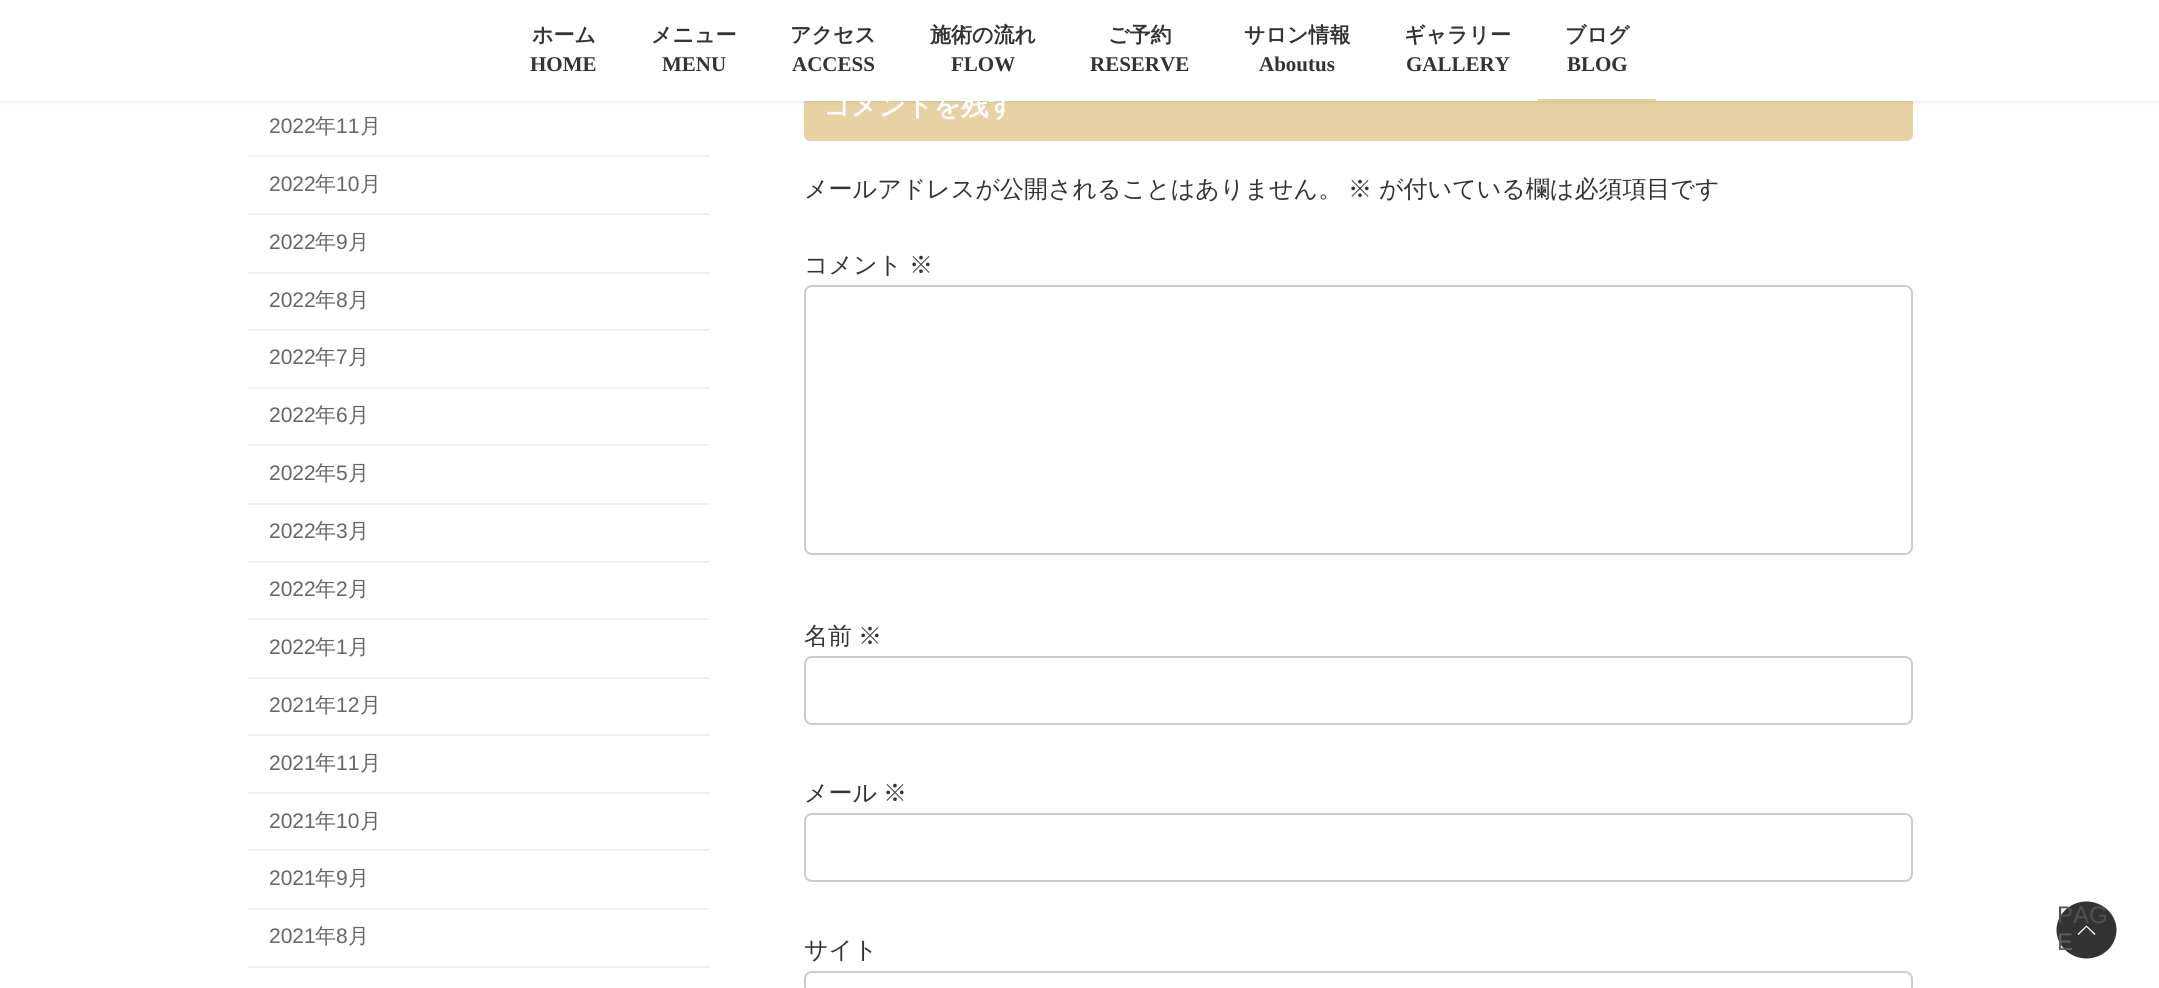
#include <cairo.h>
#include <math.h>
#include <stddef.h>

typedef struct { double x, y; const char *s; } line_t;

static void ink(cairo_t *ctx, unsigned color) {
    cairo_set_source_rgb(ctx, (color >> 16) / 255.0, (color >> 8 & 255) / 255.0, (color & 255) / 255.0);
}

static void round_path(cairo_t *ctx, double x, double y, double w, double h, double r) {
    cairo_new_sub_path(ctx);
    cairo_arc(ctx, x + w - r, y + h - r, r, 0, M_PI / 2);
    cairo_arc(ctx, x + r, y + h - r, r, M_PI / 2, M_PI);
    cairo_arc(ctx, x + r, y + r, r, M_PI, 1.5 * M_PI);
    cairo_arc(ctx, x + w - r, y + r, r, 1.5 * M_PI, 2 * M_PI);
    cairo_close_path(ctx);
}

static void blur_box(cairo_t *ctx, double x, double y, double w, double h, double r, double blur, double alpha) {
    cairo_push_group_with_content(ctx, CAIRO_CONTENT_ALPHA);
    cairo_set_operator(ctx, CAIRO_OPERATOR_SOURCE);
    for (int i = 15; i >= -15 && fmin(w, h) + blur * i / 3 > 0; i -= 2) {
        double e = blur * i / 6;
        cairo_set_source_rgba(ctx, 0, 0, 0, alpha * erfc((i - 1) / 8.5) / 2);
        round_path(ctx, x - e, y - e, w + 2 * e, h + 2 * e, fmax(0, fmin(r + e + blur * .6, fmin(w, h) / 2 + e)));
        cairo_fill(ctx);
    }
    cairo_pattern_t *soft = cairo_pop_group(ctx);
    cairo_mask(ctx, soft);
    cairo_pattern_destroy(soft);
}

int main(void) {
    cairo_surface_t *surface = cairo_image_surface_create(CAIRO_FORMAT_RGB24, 2159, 988);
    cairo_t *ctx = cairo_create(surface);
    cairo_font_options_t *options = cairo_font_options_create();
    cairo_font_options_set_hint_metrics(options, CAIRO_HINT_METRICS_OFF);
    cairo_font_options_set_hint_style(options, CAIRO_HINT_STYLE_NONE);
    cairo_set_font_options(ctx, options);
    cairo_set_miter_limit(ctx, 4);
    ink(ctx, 0xFFFFFF);
    cairo_paint(ctx);
    ink(ctx, 0xE8D2A4);
    round_path(ctx, 804, 72, 1109, 69, 6);
    cairo_fill(ctx);
    ink(ctx, 0x000000);
    blur_box(ctx, 0, 2, 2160, 100, 0, 2, 0.1);
    ink(ctx, 0xFFFFFF);
    cairo_rectangle(ctx, 0, 0, 2159, 101);
    cairo_fill(ctx);
    cairo_select_font_face(ctx, "WenQuanYi Zen Hei", CAIRO_FONT_SLANT_NORMAL, CAIRO_FONT_WEIGHT_BOLD);
    cairo_set_font_size(ctx, 21);
    ink(ctx, 0x333333);
    cairo_move_to(ctx, 532, 42);
    cairo_show_text(ctx, "ホーム");
    cairo_select_font_face(ctx, "Liberation Serif", CAIRO_FONT_SLANT_NORMAL, CAIRO_FONT_WEIGHT_BOLD);
    cairo_move_to(ctx, 530, 71);
    cairo_show_text(ctx, "HOME");
    cairo_select_font_face(ctx, "WenQuanYi Zen Hei", CAIRO_FONT_SLANT_NORMAL, CAIRO_FONT_WEIGHT_BOLD);
    cairo_move_to(ctx, 651, 42);
    cairo_show_text(ctx, "メニュー");
    cairo_select_font_face(ctx, "Liberation Serif", CAIRO_FONT_SLANT_NORMAL, CAIRO_FONT_WEIGHT_BOLD);
    cairo_move_to(ctx, 662, 71);
    cairo_show_text(ctx, "MENU");
    cairo_select_font_face(ctx, "WenQuanYi Zen Hei", CAIRO_FONT_SLANT_NORMAL, CAIRO_FONT_WEIGHT_BOLD);
    cairo_move_to(ctx, 790, 42);
    cairo_show_text(ctx, "アクセス");
    cairo_select_font_face(ctx, "Liberation Serif", CAIRO_FONT_SLANT_NORMAL, CAIRO_FONT_WEIGHT_BOLD);
    cairo_move_to(ctx, 792, 71);
    cairo_show_text(ctx, "ACCESS");
    cairo_select_font_face(ctx, "WenQuanYi Zen Hei", CAIRO_FONT_SLANT_NORMAL, CAIRO_FONT_WEIGHT_BOLD);
    cairo_move_to(ctx, 930, 42);
    cairo_show_text(ctx, "施術の流れ");
    cairo_select_font_face(ctx, "Liberation Serif", CAIRO_FONT_SLANT_NORMAL, CAIRO_FONT_WEIGHT_BOLD);
    cairo_move_to(ctx, 951, 71);
    cairo_show_text(ctx, "FLOW");
    cairo_select_font_face(ctx, "WenQuanYi Zen Hei", CAIRO_FONT_SLANT_NORMAL, CAIRO_FONT_WEIGHT_BOLD);
    cairo_move_to(ctx, 1108, 42);
    cairo_show_text(ctx, "ご予約");
    cairo_select_font_face(ctx, "Liberation Serif", CAIRO_FONT_SLANT_NORMAL, CAIRO_FONT_WEIGHT_BOLD);
    cairo_move_to(ctx, 1090, 71);
    cairo_show_text(ctx, "RESERVE");
    cairo_select_font_face(ctx, "WenQuanYi Zen Hei", CAIRO_FONT_SLANT_NORMAL, CAIRO_FONT_WEIGHT_BOLD);
    cairo_move_to(ctx, 1244, 42);
    cairo_show_text(ctx, "サロン情報");
    cairo_select_font_face(ctx, "Liberation Serif", CAIRO_FONT_SLANT_NORMAL, CAIRO_FONT_WEIGHT_BOLD);
    cairo_move_to(ctx, 1259, 71);
    cairo_show_text(ctx, "Aboutus");
    cairo_select_font_face(ctx, "WenQuanYi Zen Hei", CAIRO_FONT_SLANT_NORMAL, CAIRO_FONT_WEIGHT_BOLD);
    cairo_move_to(ctx, 1404, 42);
    cairo_show_text(ctx, "ギャラリー");
    cairo_select_font_face(ctx, "Liberation Serif", CAIRO_FONT_SLANT_NORMAL, CAIRO_FONT_WEIGHT_BOLD);
    cairo_move_to(ctx, 1406, 71);
    cairo_show_text(ctx, "GALLERY");
    cairo_select_font_face(ctx, "WenQuanYi Zen Hei", CAIRO_FONT_SLANT_NORMAL, CAIRO_FONT_WEIGHT_BOLD);
    cairo_move_to(ctx, 1565, 42);
    cairo_show_text(ctx, "ブログ");
    cairo_select_font_face(ctx, "Liberation Serif", CAIRO_FONT_SLANT_NORMAL, CAIRO_FONT_WEIGHT_BOLD);
    cairo_move_to(ctx, 1567, 71);
    cairo_show_text(ctx, "BLOG");
    ink(ctx, 0xE8D2A4);
    cairo_rectangle(ctx, 1538, 99, 118, 2);
    cairo_fill(ctx);
    ink(ctx, 0xF0F0F0);
    cairo_rectangle(ctx, 248, 155, 462, 2);
    cairo_fill(ctx);
    cairo_select_font_face(ctx, "Liberation Sans", CAIRO_FONT_SLANT_NORMAL, CAIRO_FONT_WEIGHT_NORMAL);
    ink(ctx, 0x666666);
    cairo_move_to(ctx, 269, 133);
    cairo_show_text(ctx, "2022");
    cairo_select_font_face(ctx, "WenQuanYi Zen Hei Medium", CAIRO_FONT_SLANT_NORMAL, CAIRO_FONT_WEIGHT_NORMAL);
    cairo_move_to(ctx, 315, 133);
    cairo_show_text(ctx, "年");
    cairo_select_font_face(ctx, "Liberation Sans", CAIRO_FONT_SLANT_NORMAL, CAIRO_FONT_WEIGHT_NORMAL);
    cairo_move_to(ctx, 336, 133);
    cairo_show_text(ctx, "11");
    cairo_select_font_face(ctx, "WenQuanYi Zen Hei Medium", CAIRO_FONT_SLANT_NORMAL, CAIRO_FONT_WEIGHT_NORMAL);
    cairo_move_to(ctx, 360, 133);
    cairo_show_text(ctx, "月");
    ink(ctx, 0xF0F0F0);
    cairo_rectangle(ctx, 248, 213, 462, 2);
    cairo_fill(ctx);
    cairo_select_font_face(ctx, "Liberation Sans", CAIRO_FONT_SLANT_NORMAL, CAIRO_FONT_WEIGHT_NORMAL);
    ink(ctx, 0x666666);
    cairo_move_to(ctx, 269, 191);
    cairo_show_text(ctx, "2022");
    cairo_select_font_face(ctx, "WenQuanYi Zen Hei Medium", CAIRO_FONT_SLANT_NORMAL, CAIRO_FONT_WEIGHT_NORMAL);
    cairo_move_to(ctx, 315, 191);
    cairo_show_text(ctx, "年");
    cairo_select_font_face(ctx, "Liberation Sans", CAIRO_FONT_SLANT_NORMAL, CAIRO_FONT_WEIGHT_NORMAL);
    cairo_move_to(ctx, 336, 191);
    cairo_show_text(ctx, "10");
    cairo_select_font_face(ctx, "WenQuanYi Zen Hei Medium", CAIRO_FONT_SLANT_NORMAL, CAIRO_FONT_WEIGHT_NORMAL);
    cairo_move_to(ctx, 360, 191);
    cairo_show_text(ctx, "月");
    ink(ctx, 0xF0F0F0);
    cairo_rectangle(ctx, 248, 272, 462, 2);
    cairo_fill(ctx);
    cairo_select_font_face(ctx, "Liberation Sans", CAIRO_FONT_SLANT_NORMAL, CAIRO_FONT_WEIGHT_NORMAL);
    ink(ctx, 0x666666);
    cairo_move_to(ctx, 269, 249);
    cairo_show_text(ctx, "2022");
    cairo_select_font_face(ctx, "WenQuanYi Zen Hei Medium", CAIRO_FONT_SLANT_NORMAL, CAIRO_FONT_WEIGHT_NORMAL);
    cairo_move_to(ctx, 315, 249);
    cairo_show_text(ctx, "年");
    cairo_select_font_face(ctx, "Liberation Sans", CAIRO_FONT_SLANT_NORMAL, CAIRO_FONT_WEIGHT_NORMAL);
    cairo_move_to(ctx, 336, 249);
    cairo_show_text(ctx, "9");
    cairo_select_font_face(ctx, "WenQuanYi Zen Hei Medium", CAIRO_FONT_SLANT_NORMAL, CAIRO_FONT_WEIGHT_NORMAL);
    cairo_move_to(ctx, 348, 249);
    cairo_show_text(ctx, "月");
    ink(ctx, 0xF0F0F0);
    cairo_rectangle(ctx, 248, 329, 462, 2);
    cairo_fill(ctx);
    cairo_select_font_face(ctx, "Liberation Sans", CAIRO_FONT_SLANT_NORMAL, CAIRO_FONT_WEIGHT_NORMAL);
    ink(ctx, 0x666666);
    cairo_move_to(ctx, 269, 307);
    cairo_show_text(ctx, "2022");
    cairo_select_font_face(ctx, "WenQuanYi Zen Hei Medium", CAIRO_FONT_SLANT_NORMAL, CAIRO_FONT_WEIGHT_NORMAL);
    cairo_move_to(ctx, 315, 307);
    cairo_show_text(ctx, "年");
    cairo_select_font_face(ctx, "Liberation Sans", CAIRO_FONT_SLANT_NORMAL, CAIRO_FONT_WEIGHT_NORMAL);
    cairo_move_to(ctx, 336, 307);
    cairo_show_text(ctx, "8");
    cairo_select_font_face(ctx, "WenQuanYi Zen Hei Medium", CAIRO_FONT_SLANT_NORMAL, CAIRO_FONT_WEIGHT_NORMAL);
    cairo_move_to(ctx, 348, 307);
    cairo_show_text(ctx, "月");
    ink(ctx, 0xF0F0F0);
    cairo_rectangle(ctx, 248, 387, 462, 2);
    cairo_fill(ctx);
    cairo_select_font_face(ctx, "Liberation Sans", CAIRO_FONT_SLANT_NORMAL, CAIRO_FONT_WEIGHT_NORMAL);
    ink(ctx, 0x666666);
    cairo_move_to(ctx, 269, 364);
    cairo_show_text(ctx, "2022");
    cairo_select_font_face(ctx, "WenQuanYi Zen Hei Medium", CAIRO_FONT_SLANT_NORMAL, CAIRO_FONT_WEIGHT_NORMAL);
    cairo_move_to(ctx, 315, 364);
    cairo_show_text(ctx, "年");
    cairo_select_font_face(ctx, "Liberation Sans", CAIRO_FONT_SLANT_NORMAL, CAIRO_FONT_WEIGHT_NORMAL);
    cairo_move_to(ctx, 336, 364);
    cairo_show_text(ctx, "7");
    cairo_select_font_face(ctx, "WenQuanYi Zen Hei Medium", CAIRO_FONT_SLANT_NORMAL, CAIRO_FONT_WEIGHT_NORMAL);
    cairo_move_to(ctx, 348, 364);
    cairo_show_text(ctx, "月");
    ink(ctx, 0xF0F0F0);
    cairo_rectangle(ctx, 248, 444, 462, 2);
    cairo_fill(ctx);
    cairo_select_font_face(ctx, "Liberation Sans", CAIRO_FONT_SLANT_NORMAL, CAIRO_FONT_WEIGHT_NORMAL);
    ink(ctx, 0x666666);
    cairo_move_to(ctx, 269, 422);
    cairo_show_text(ctx, "2022");
    cairo_select_font_face(ctx, "WenQuanYi Zen Hei Medium", CAIRO_FONT_SLANT_NORMAL, CAIRO_FONT_WEIGHT_NORMAL);
    cairo_move_to(ctx, 315, 422);
    cairo_show_text(ctx, "年");
    cairo_select_font_face(ctx, "Liberation Sans", CAIRO_FONT_SLANT_NORMAL, CAIRO_FONT_WEIGHT_NORMAL);
    cairo_move_to(ctx, 336, 422);
    cairo_show_text(ctx, "6");
    cairo_select_font_face(ctx, "WenQuanYi Zen Hei Medium", CAIRO_FONT_SLANT_NORMAL, CAIRO_FONT_WEIGHT_NORMAL);
    cairo_move_to(ctx, 348, 422);
    cairo_show_text(ctx, "月");
    ink(ctx, 0xF0F0F0);
    cairo_rectangle(ctx, 248, 503, 462, 2);
    cairo_fill(ctx);
    cairo_select_font_face(ctx, "Liberation Sans", CAIRO_FONT_SLANT_NORMAL, CAIRO_FONT_WEIGHT_NORMAL);
    ink(ctx, 0x666666);
    cairo_move_to(ctx, 269, 480);
    cairo_show_text(ctx, "2022");
    cairo_select_font_face(ctx, "WenQuanYi Zen Hei Medium", CAIRO_FONT_SLANT_NORMAL, CAIRO_FONT_WEIGHT_NORMAL);
    cairo_move_to(ctx, 315, 480);
    cairo_show_text(ctx, "年");
    cairo_select_font_face(ctx, "Liberation Sans", CAIRO_FONT_SLANT_NORMAL, CAIRO_FONT_WEIGHT_NORMAL);
    cairo_move_to(ctx, 336, 480);
    cairo_show_text(ctx, "5");
    cairo_select_font_face(ctx, "WenQuanYi Zen Hei Medium", CAIRO_FONT_SLANT_NORMAL, CAIRO_FONT_WEIGHT_NORMAL);
    cairo_move_to(ctx, 348, 480);
    cairo_show_text(ctx, "月");
    ink(ctx, 0xF0F0F0);
    cairo_rectangle(ctx, 248, 561, 462, 2);
    cairo_fill(ctx);
    cairo_select_font_face(ctx, "Liberation Sans", CAIRO_FONT_SLANT_NORMAL, CAIRO_FONT_WEIGHT_NORMAL);
    ink(ctx, 0x666666);
    cairo_move_to(ctx, 269, 538);
    cairo_show_text(ctx, "2022");
    cairo_select_font_face(ctx, "WenQuanYi Zen Hei Medium", CAIRO_FONT_SLANT_NORMAL, CAIRO_FONT_WEIGHT_NORMAL);
    cairo_move_to(ctx, 315, 538);
    cairo_show_text(ctx, "年");
    cairo_select_font_face(ctx, "Liberation Sans", CAIRO_FONT_SLANT_NORMAL, CAIRO_FONT_WEIGHT_NORMAL);
    cairo_move_to(ctx, 336, 538);
    cairo_show_text(ctx, "3");
    cairo_select_font_face(ctx, "WenQuanYi Zen Hei Medium", CAIRO_FONT_SLANT_NORMAL, CAIRO_FONT_WEIGHT_NORMAL);
    cairo_move_to(ctx, 348, 538);
    cairo_show_text(ctx, "月");
    ink(ctx, 0xF0F0F0);
    cairo_rectangle(ctx, 248, 618, 462, 2);
    cairo_fill(ctx);
    cairo_select_font_face(ctx, "Liberation Sans", CAIRO_FONT_SLANT_NORMAL, CAIRO_FONT_WEIGHT_NORMAL);
    ink(ctx, 0x666666);
    cairo_move_to(ctx, 269, 596);
    cairo_show_text(ctx, "2022");
    cairo_select_font_face(ctx, "WenQuanYi Zen Hei Medium", CAIRO_FONT_SLANT_NORMAL, CAIRO_FONT_WEIGHT_NORMAL);
    cairo_move_to(ctx, 315, 596);
    cairo_show_text(ctx, "年");
    cairo_select_font_face(ctx, "Liberation Sans", CAIRO_FONT_SLANT_NORMAL, CAIRO_FONT_WEIGHT_NORMAL);
    cairo_move_to(ctx, 336, 596);
    cairo_show_text(ctx, "2");
    cairo_select_font_face(ctx, "WenQuanYi Zen Hei Medium", CAIRO_FONT_SLANT_NORMAL, CAIRO_FONT_WEIGHT_NORMAL);
    cairo_move_to(ctx, 348, 596);
    cairo_show_text(ctx, "月");
    ink(ctx, 0xF0F0F0);
    cairo_rectangle(ctx, 248, 677, 462, 2);
    cairo_fill(ctx);
    cairo_select_font_face(ctx, "Liberation Sans", CAIRO_FONT_SLANT_NORMAL, CAIRO_FONT_WEIGHT_NORMAL);
    ink(ctx, 0x666666);
    cairo_move_to(ctx, 269, 654);
    cairo_show_text(ctx, "2022");
    cairo_select_font_face(ctx, "WenQuanYi Zen Hei Medium", CAIRO_FONT_SLANT_NORMAL, CAIRO_FONT_WEIGHT_NORMAL);
    cairo_move_to(ctx, 315, 654);
    cairo_show_text(ctx, "年");
    cairo_select_font_face(ctx, "Liberation Sans", CAIRO_FONT_SLANT_NORMAL, CAIRO_FONT_WEIGHT_NORMAL);
    cairo_move_to(ctx, 336, 654);
    cairo_show_text(ctx, "1");
    cairo_select_font_face(ctx, "WenQuanYi Zen Hei Medium", CAIRO_FONT_SLANT_NORMAL, CAIRO_FONT_WEIGHT_NORMAL);
    cairo_move_to(ctx, 348, 654);
    cairo_show_text(ctx, "月");
    ink(ctx, 0xF0F0F0);
    cairo_rectangle(ctx, 248, 734, 462, 2);
    cairo_fill(ctx);
    cairo_select_font_face(ctx, "Liberation Sans", CAIRO_FONT_SLANT_NORMAL, CAIRO_FONT_WEIGHT_NORMAL);
    ink(ctx, 0x666666);
    cairo_move_to(ctx, 269, 712);
    cairo_show_text(ctx, "2021");
    cairo_select_font_face(ctx, "WenQuanYi Zen Hei Medium", CAIRO_FONT_SLANT_NORMAL, CAIRO_FONT_WEIGHT_NORMAL);
    cairo_move_to(ctx, 315, 712);
    cairo_show_text(ctx, "年");
    cairo_select_font_face(ctx, "Liberation Sans", CAIRO_FONT_SLANT_NORMAL, CAIRO_FONT_WEIGHT_NORMAL);
    cairo_move_to(ctx, 336, 712);
    cairo_show_text(ctx, "12");
    cairo_select_font_face(ctx, "WenQuanYi Zen Hei Medium", CAIRO_FONT_SLANT_NORMAL, CAIRO_FONT_WEIGHT_NORMAL);
    cairo_move_to(ctx, 360, 712);
    cairo_show_text(ctx, "月");
    ink(ctx, 0xF0F0F0);
    cairo_rectangle(ctx, 248, 792, 462, 2);
    cairo_fill(ctx);
    cairo_select_font_face(ctx, "Liberation Sans", CAIRO_FONT_SLANT_NORMAL, CAIRO_FONT_WEIGHT_NORMAL);
    ink(ctx, 0x666666);
    cairo_move_to(ctx, 269, 770);
    cairo_show_text(ctx, "2021");
    cairo_select_font_face(ctx, "WenQuanYi Zen Hei Medium", CAIRO_FONT_SLANT_NORMAL, CAIRO_FONT_WEIGHT_NORMAL);
    cairo_move_to(ctx, 315, 770);
    cairo_show_text(ctx, "年");
    cairo_select_font_face(ctx, "Liberation Sans", CAIRO_FONT_SLANT_NORMAL, CAIRO_FONT_WEIGHT_NORMAL);
    cairo_move_to(ctx, 336, 770);
    cairo_show_text(ctx, "11");
    cairo_select_font_face(ctx, "WenQuanYi Zen Hei Medium", CAIRO_FONT_SLANT_NORMAL, CAIRO_FONT_WEIGHT_NORMAL);
    cairo_move_to(ctx, 360, 770);
    cairo_show_text(ctx, "月");
    ink(ctx, 0xF0F0F0);
    cairo_rectangle(ctx, 248, 849, 462, 2);
    cairo_fill(ctx);
    cairo_select_font_face(ctx, "Liberation Sans", CAIRO_FONT_SLANT_NORMAL, CAIRO_FONT_WEIGHT_NORMAL);
    ink(ctx, 0x666666);
    cairo_move_to(ctx, 269, 828);
    cairo_show_text(ctx, "2021");
    cairo_select_font_face(ctx, "WenQuanYi Zen Hei Medium", CAIRO_FONT_SLANT_NORMAL, CAIRO_FONT_WEIGHT_NORMAL);
    cairo_move_to(ctx, 315, 828);
    cairo_show_text(ctx, "年");
    cairo_select_font_face(ctx, "Liberation Sans", CAIRO_FONT_SLANT_NORMAL, CAIRO_FONT_WEIGHT_NORMAL);
    cairo_move_to(ctx, 336, 828);
    cairo_show_text(ctx, "10");
    cairo_select_font_face(ctx, "WenQuanYi Zen Hei Medium", CAIRO_FONT_SLANT_NORMAL, CAIRO_FONT_WEIGHT_NORMAL);
    cairo_move_to(ctx, 360, 828);
    cairo_show_text(ctx, "月");
    ink(ctx, 0xF0F0F0);
    cairo_rectangle(ctx, 248, 908, 462, 2);
    cairo_fill(ctx);
    cairo_select_font_face(ctx, "Liberation Sans", CAIRO_FONT_SLANT_NORMAL, CAIRO_FONT_WEIGHT_NORMAL);
    ink(ctx, 0x666666);
    cairo_move_to(ctx, 269, 885);
    cairo_show_text(ctx, "2021");
    cairo_select_font_face(ctx, "WenQuanYi Zen Hei Medium", CAIRO_FONT_SLANT_NORMAL, CAIRO_FONT_WEIGHT_NORMAL);
    cairo_move_to(ctx, 315, 885);
    cairo_show_text(ctx, "年");
    cairo_select_font_face(ctx, "Liberation Sans", CAIRO_FONT_SLANT_NORMAL, CAIRO_FONT_WEIGHT_NORMAL);
    cairo_move_to(ctx, 336, 885);
    cairo_show_text(ctx, "9");
    cairo_select_font_face(ctx, "WenQuanYi Zen Hei Medium", CAIRO_FONT_SLANT_NORMAL, CAIRO_FONT_WEIGHT_NORMAL);
    cairo_move_to(ctx, 348, 885);
    cairo_show_text(ctx, "月");
    ink(ctx, 0xF0F0F0);
    cairo_rectangle(ctx, 248, 966, 462, 2);
    cairo_fill(ctx);
    cairo_select_font_face(ctx, "Liberation Sans", CAIRO_FONT_SLANT_NORMAL, CAIRO_FONT_WEIGHT_NORMAL);
    ink(ctx, 0x666666);
    cairo_move_to(ctx, 269, 943);
    cairo_show_text(ctx, "2021");
    cairo_select_font_face(ctx, "WenQuanYi Zen Hei Medium", CAIRO_FONT_SLANT_NORMAL, CAIRO_FONT_WEIGHT_NORMAL);
    cairo_move_to(ctx, 315, 943);
    cairo_show_text(ctx, "年");
    cairo_select_font_face(ctx, "Liberation Sans", CAIRO_FONT_SLANT_NORMAL, CAIRO_FONT_WEIGHT_NORMAL);
    cairo_move_to(ctx, 336, 943);
    cairo_show_text(ctx, "8");
    cairo_select_font_face(ctx, "WenQuanYi Zen Hei Medium", CAIRO_FONT_SLANT_NORMAL, CAIRO_FONT_WEIGHT_NORMAL);
    cairo_move_to(ctx, 348, 943);
    cairo_show_text(ctx, "月");
    cairo_select_font_face(ctx, "WenQuanYi Zen Hei", CAIRO_FONT_SLANT_NORMAL, CAIRO_FONT_WEIGHT_BOLD);
    cairo_set_font_size(ctx, 27);
    ink(ctx, 0xFFFFFF);
    cairo_move_to(ctx, 823, 115);
    cairo_show_text(ctx, "コメントを残す");
    cairo_select_font_face(ctx, "WenQuanYi Zen Hei Medium", CAIRO_FONT_SLANT_NORMAL, CAIRO_FONT_WEIGHT_NORMAL);
    cairo_set_font_size(ctx, 24);
    ink(ctx, 0x333333);
    {
        static const line_t items[] = {
            {804, 197, "メールアドレスが公開されることはありません。"},
            {1348, 197, "※"},
            {1379, 197, "が付いている欄は必須項目です"},
            {804, 273, "コメント"},
            {909, 273, "※"},
        };
        for (size_t i = 0; i < sizeof items / sizeof *items; i++) {
            cairo_move_to(ctx, items[i].x, items[i].y);
            cairo_show_text(ctx, items[i].s);
        }
    }
    round_path(ctx, 805, 286, 1107, 268, 7);
    ink(ctx, 0xCCCCCC);
    cairo_stroke(ctx);
    ink(ctx, 0x333333);
    cairo_move_to(ctx, 804, 644);
    cairo_show_text(ctx, "名前");
    cairo_move_to(ctx, 858, 644);
    cairo_show_text(ctx, "※");
    round_path(ctx, 805, 657, 1107, 67, 7);
    ink(ctx, 0xCCCCCC);
    cairo_stroke(ctx);
    ink(ctx, 0x333333);
    cairo_move_to(ctx, 804, 801);
    cairo_show_text(ctx, "メール");
    cairo_move_to(ctx, 883, 801);
    cairo_show_text(ctx, "※");
    round_path(ctx, 805, 814, 1107, 67, 7);
    ink(ctx, 0xCCCCCC);
    cairo_stroke(ctx);
    ink(ctx, 0x333333);
    cairo_move_to(ctx, 804, 958);
    cairo_show_text(ctx, "サイト");
    round_path(ctx, 805, 972, 1107, 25, 7);
    ink(ctx, 0xCCCCCC);
    cairo_stroke(ctx);
    ink(ctx, 0x333333);
    cairo_new_path(ctx);
    cairo_move_to(ctx, 2086.5, 901.5);
    cairo_curve_to(ctx, 2103, 901.5, 2116.5, 914.5, 2116.5, 930);
    cairo_curve_to(ctx, 2116.5, 945.5, 2103, 958.5, 2086.5, 958.5);
    cairo_curve_to(ctx, 2070, 958.5, 2056.5, 945.5, 2056.5, 930);
    cairo_curve_to(ctx, 2056.5, 914.5, 2070, 901.5, 2086.5, 901.5);
    cairo_close_path(ctx);
    cairo_fill(ctx);
    ink(ctx, 0xFFFFFF);
    cairo_new_path(ctx);
    cairo_move_to(ctx, 2095.5, 934);
    cairo_line_to(ctx, 2094.5, 935);
    cairo_line_to(ctx, 2086.5, 927);
    cairo_line_to(ctx, 2078.5, 935);
    cairo_line_to(ctx, 2077.5, 934);
    cairo_line_to(ctx, 2086.5, 925.5);
    cairo_close_path(ctx);
    cairo_fill(ctx);
    cairo_select_font_face(ctx, "Liberation Sans", CAIRO_FONT_SLANT_NORMAL, CAIRO_FONT_WEIGHT_NORMAL);
    ink(ctx, 0x505050);
    cairo_move_to(ctx, 2057, 923);
    cairo_show_text(ctx, "PAG");
    ink(ctx, 0x606060);
    cairo_move_to(ctx, 2057, 950);
    cairo_show_text(ctx, "E");
    cairo_surface_write_to_png(surface, "image.png");
    cairo_font_options_destroy(options);
    cairo_destroy(ctx);
    cairo_surface_destroy(surface);
    return 0;
}
